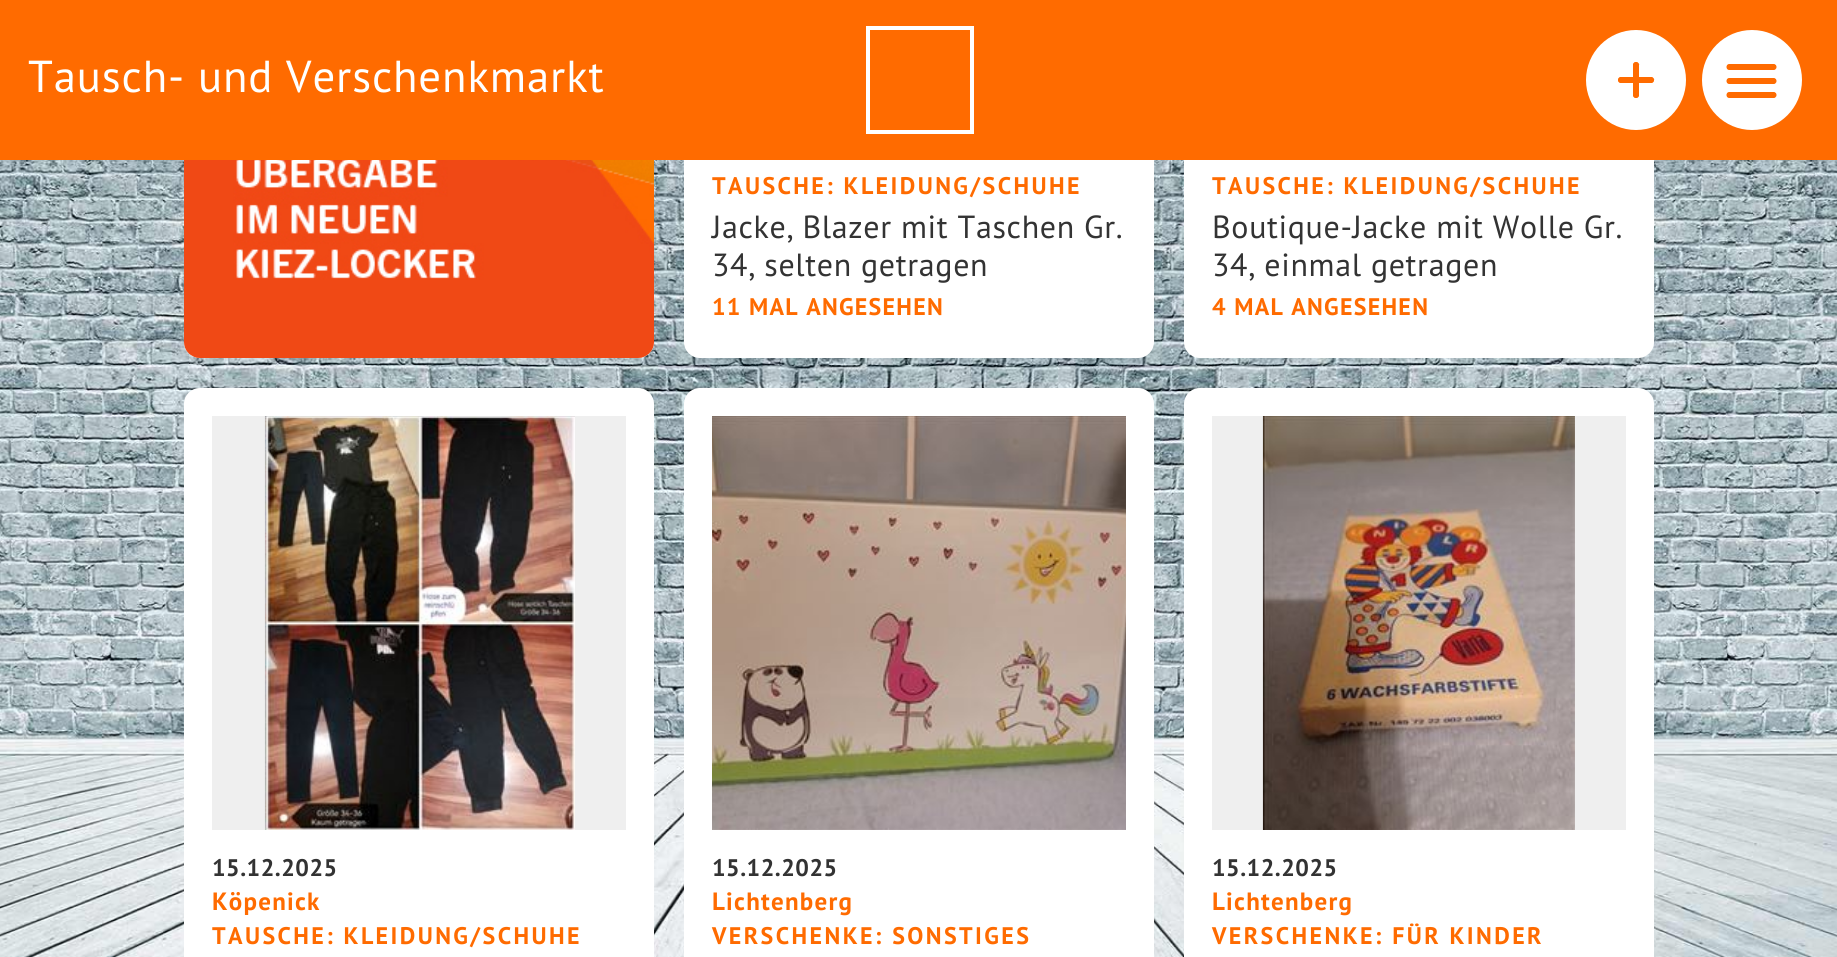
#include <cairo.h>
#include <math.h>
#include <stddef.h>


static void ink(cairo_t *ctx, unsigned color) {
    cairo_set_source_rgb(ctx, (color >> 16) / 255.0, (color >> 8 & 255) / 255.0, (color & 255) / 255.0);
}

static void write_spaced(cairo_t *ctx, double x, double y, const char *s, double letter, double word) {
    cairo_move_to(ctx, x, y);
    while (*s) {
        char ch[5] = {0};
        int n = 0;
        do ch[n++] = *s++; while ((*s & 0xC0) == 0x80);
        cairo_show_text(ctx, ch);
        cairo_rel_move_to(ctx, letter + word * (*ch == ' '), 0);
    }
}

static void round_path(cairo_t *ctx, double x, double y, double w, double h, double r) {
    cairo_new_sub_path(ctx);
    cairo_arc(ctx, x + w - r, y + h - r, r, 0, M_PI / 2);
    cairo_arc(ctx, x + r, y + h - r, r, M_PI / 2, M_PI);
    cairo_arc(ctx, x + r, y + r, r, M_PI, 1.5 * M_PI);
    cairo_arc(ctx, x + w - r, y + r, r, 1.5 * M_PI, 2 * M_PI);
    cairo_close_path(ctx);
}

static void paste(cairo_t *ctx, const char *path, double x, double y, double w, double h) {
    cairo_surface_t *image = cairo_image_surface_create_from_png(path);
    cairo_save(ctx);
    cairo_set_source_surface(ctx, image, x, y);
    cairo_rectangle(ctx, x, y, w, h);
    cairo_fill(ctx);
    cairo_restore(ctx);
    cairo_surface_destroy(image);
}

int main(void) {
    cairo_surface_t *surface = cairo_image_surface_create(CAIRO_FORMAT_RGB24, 1837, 957);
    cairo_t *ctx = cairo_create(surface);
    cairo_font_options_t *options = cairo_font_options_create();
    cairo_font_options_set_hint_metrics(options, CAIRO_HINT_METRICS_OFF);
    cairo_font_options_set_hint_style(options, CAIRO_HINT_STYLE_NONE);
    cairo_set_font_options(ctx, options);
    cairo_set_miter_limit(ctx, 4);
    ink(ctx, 0xFFFFFF);
    cairo_paint(ctx);
    paste(ctx, "media/7.png", 0, 160, 1837, 797);
    ink(ctx, 0xFFFFFF);
    round_path(ctx, 184, -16, 470, 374, 16);
    cairo_fill(ctx);
    round_path(ctx, 684, -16, 470, 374, 16);
    cairo_fill(ctx);
    round_path(ctx, 1184, -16, 470, 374, 16);
    cairo_fill(ctx);
    ink(ctx, 0xFF6B00);
    cairo_rectangle(ctx, 0, 0, 1837, 160);
    cairo_fill(ctx);
    cairo_select_font_face(ctx, "PT Sans", CAIRO_FONT_SLANT_NORMAL, CAIRO_FONT_WEIGHT_NORMAL);
    cairo_set_font_size(ctx, 44.75);
    ink(ctx, 0xFFFFFF);
    write_spaced(ctx, 28, 92, "Tausch- und Verschenkmarkt", 0.9, 0);
    cairo_rectangle(ctx, 868, 28, 104, 104);
    cairo_set_line_width(ctx, 4);
    cairo_stroke(ctx);
    cairo_arc(ctx, 1636, 80, 50, 0, 2 * M_PI);
    cairo_fill(ctx);
    paste(ctx, "media/1.png", 1618, 62, 37, 36);
    cairo_arc(ctx, 1752, 80, 50, 0, 2 * M_PI);
    cairo_fill(ctx);
    paste(ctx, "media/2.png", 1726, 64, 51, 34);
    paste(ctx, "media/3.png", 184, 160, 470, 198);
    cairo_select_font_face(ctx, "PT Sans", CAIRO_FONT_SLANT_NORMAL, CAIRO_FONT_WEIGHT_BOLD);
    cairo_set_font_size(ctx, 24);
    ink(ctx, 0xFF6B00);
    write_spaced(ctx, 712, 194, "TAUSCHE: KLEIDUNG/SCHUHE", 2.4, 0);
    cairo_select_font_face(ctx, "PT Sans", CAIRO_FONT_SLANT_NORMAL, CAIRO_FONT_WEIGHT_NORMAL);
    cairo_set_font_size(ctx, 32);
    ink(ctx, 0x333333);
    write_spaced(ctx, 712, 238, "Jacke, Blazer mit Taschen Gr.", 0.65, 0);
    write_spaced(ctx, 712, 276, "34, selten getragen", 0.65, 0);
    cairo_select_font_face(ctx, "PT Sans", CAIRO_FONT_SLANT_NORMAL, CAIRO_FONT_WEIGHT_BOLD);
    cairo_set_font_size(ctx, 24);
    ink(ctx, 0xFF6B00);
    write_spaced(ctx, 712, 315, "11 MAL ANGESEHEN", 1.25, 0);
    write_spaced(ctx, 1212, 194, "TAUSCHE: KLEIDUNG/SCHUHE", 2.4, 0);
    cairo_select_font_face(ctx, "PT Sans", CAIRO_FONT_SLANT_NORMAL, CAIRO_FONT_WEIGHT_NORMAL);
    cairo_set_font_size(ctx, 32);
    ink(ctx, 0x333333);
    write_spaced(ctx, 1212, 238, "Boutique-Jacke mit Wolle Gr.", 0.65, 0);
    write_spaced(ctx, 1212, 276, "34, einmal getragen", 0.65, 0);
    cairo_select_font_face(ctx, "PT Sans", CAIRO_FONT_SLANT_NORMAL, CAIRO_FONT_WEIGHT_BOLD);
    cairo_set_font_size(ctx, 24);
    ink(ctx, 0xFF6B00);
    write_spaced(ctx, 1212, 315, "4 MAL ANGESEHEN", 1.25, 0);
    ink(ctx, 0xFFFFFF);
    round_path(ctx, 184, 388, 470, 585, 16);
    cairo_fill(ctx);
    ink(ctx, 0xEFEFEF);
    cairo_rectangle(ctx, 212, 416, 414, 414);
    cairo_fill(ctx);
    paste(ctx, "media/4.png", 264, 416, 311, 414);
    ink(ctx, 0x333333);
    write_spaced(ctx, 212, 876, "15.12.2025", 0.5, 0);
    cairo_set_font_size(ctx, 25);
    ink(ctx, 0xFF6B00);
    write_spaced(ctx, 212, 910, "Köpenick", 1.25, 0);
    cairo_set_font_size(ctx, 24);
    write_spaced(ctx, 212, 944, "TAUSCHE: KLEIDUNG/SCHUHE", 2.4, 0);
    ink(ctx, 0xFFFFFF);
    round_path(ctx, 684, 388, 470, 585, 16);
    cairo_fill(ctx);
    paste(ctx, "media/5.png", 712, 416, 414, 414);
    ink(ctx, 0x333333);
    write_spaced(ctx, 712, 876, "15.12.2025", 0.5, 0);
    cairo_set_font_size(ctx, 25);
    ink(ctx, 0xFF6B00);
    write_spaced(ctx, 712, 910, "Lichtenberg", 1.25, 0);
    cairo_set_font_size(ctx, 24);
    write_spaced(ctx, 712, 944, "VERSCHENKE: SONSTIGES", 2.4, 0);
    ink(ctx, 0xFFFFFF);
    round_path(ctx, 1184, 388, 470, 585, 16);
    cairo_fill(ctx);
    ink(ctx, 0xEFEFEF);
    cairo_rectangle(ctx, 1212, 416, 414, 414);
    cairo_fill(ctx);
    paste(ctx, "media/6.png", 1262, 416, 313, 414);
    ink(ctx, 0x333333);
    write_spaced(ctx, 1212, 876, "15.12.2025", 0.5, 0);
    cairo_set_font_size(ctx, 25);
    ink(ctx, 0xFF6B00);
    write_spaced(ctx, 1212, 910, "Lichtenberg", 1.25, 0);
    cairo_set_font_size(ctx, 24);
    write_spaced(ctx, 1212, 944, "VERSCHENKE: FÜR KINDER", 2.4, 0);
    cairo_surface_write_to_png(surface, "image.png");
    cairo_font_options_destroy(options);
    cairo_destroy(ctx);
    cairo_surface_destroy(surface);
    return 0;
}
